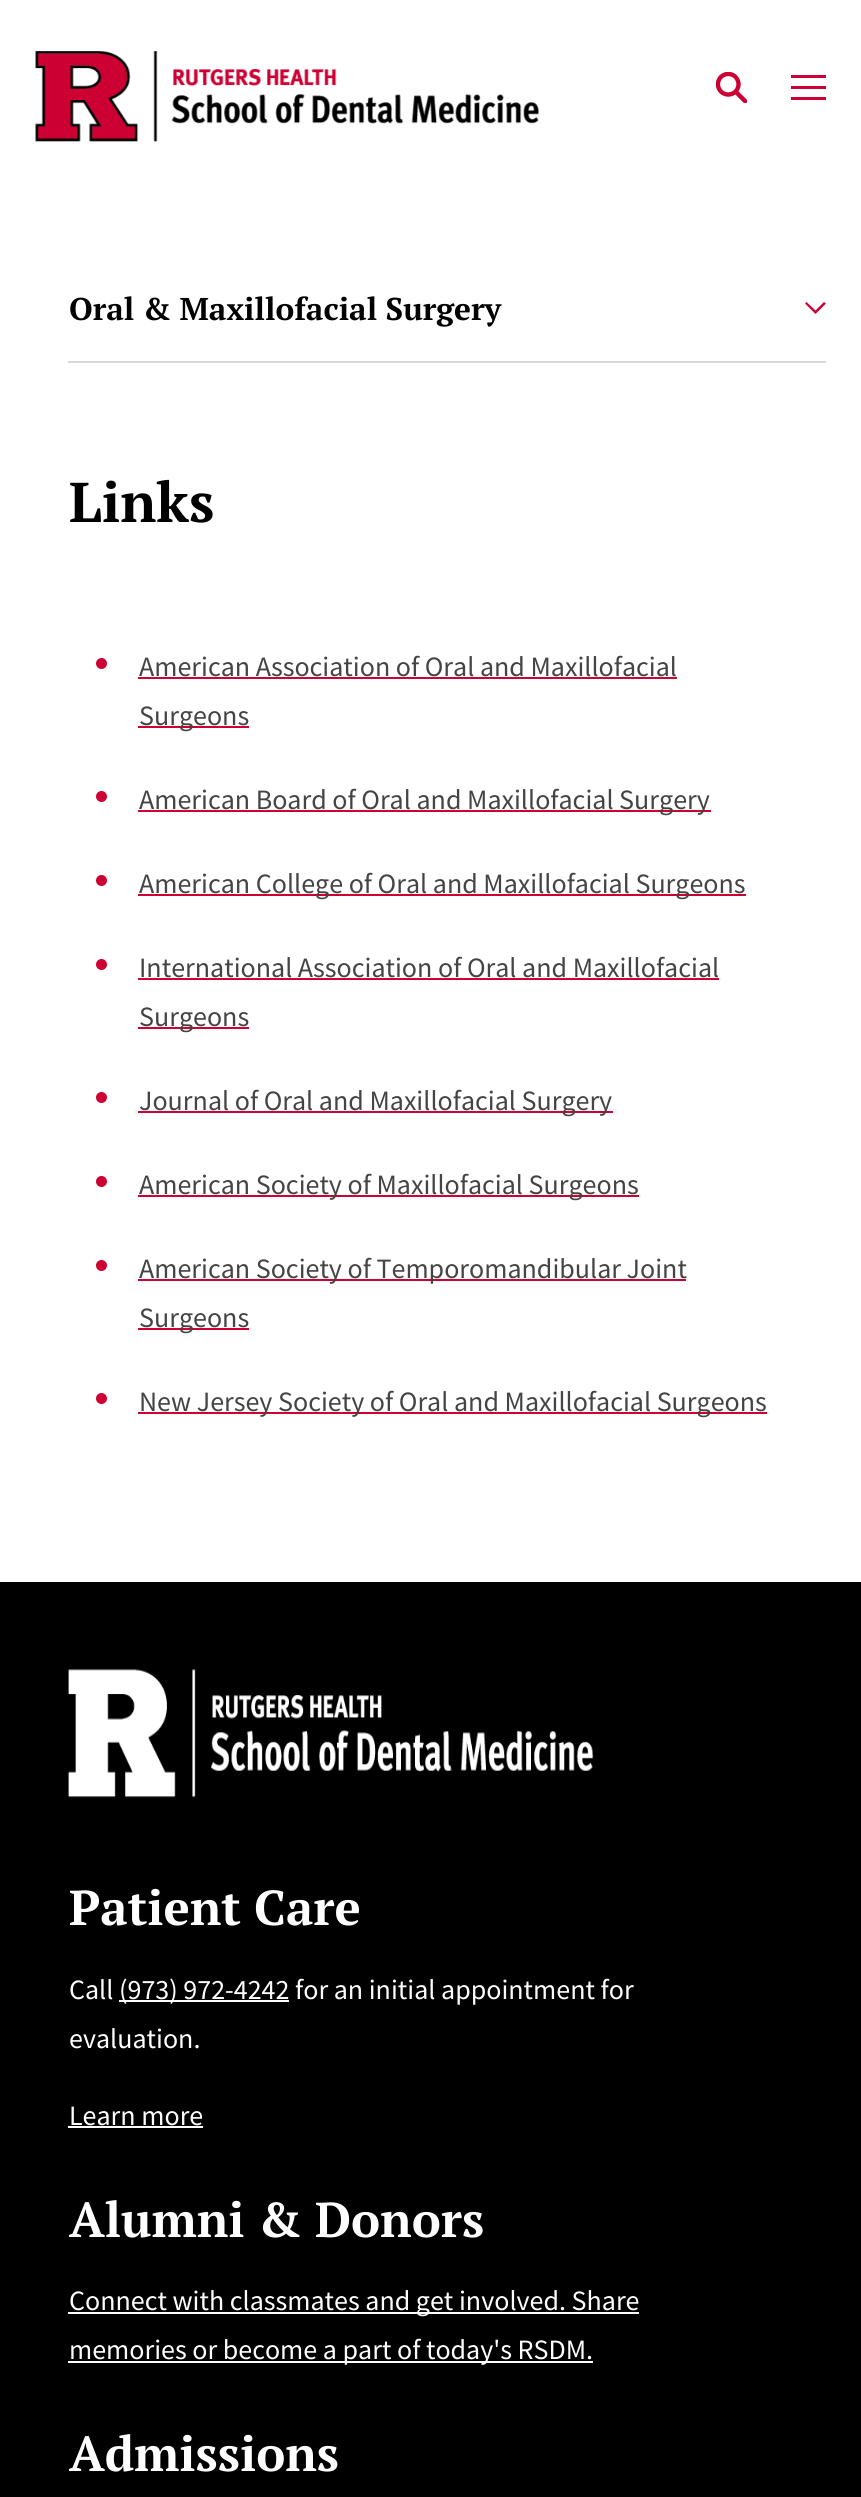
#include <cairo.h>
#include <math.h>
#include <stddef.h>

typedef struct { double x, y; const char *s; } line_t;

static void ink(cairo_t *ctx, unsigned color) {
    cairo_set_source_rgb(ctx, (color >> 16) / 255.0, (color >> 8 & 255) / 255.0, (color & 255) / 255.0);
}

static void paste(cairo_t *ctx, const char *path, double x, double y, double w, double h) {
    cairo_surface_t *image = cairo_image_surface_create_from_png(path);
    cairo_save(ctx);
    cairo_set_source_surface(ctx, image, x, y);
    cairo_rectangle(ctx, x, y, w, h);
    cairo_fill(ctx);
    cairo_restore(ctx);
    cairo_surface_destroy(image);
}

int main(void) {
    cairo_surface_t *surface = cairo_image_surface_create(CAIRO_FORMAT_RGB24, 861, 2497);
    cairo_t *ctx = cairo_create(surface);
    cairo_font_options_t *options = cairo_font_options_create();
    cairo_font_options_set_hint_metrics(options, CAIRO_HINT_METRICS_OFF);
    cairo_font_options_set_hint_style(options, CAIRO_HINT_STYLE_NONE);
    cairo_set_font_options(ctx, options);
    cairo_set_miter_limit(ctx, 4);
    ink(ctx, 0xFFFFFF);
    cairo_paint(ctx);
    paste(ctx, "media/1.png", 35, 51, 504, 91);
    paste(ctx, "media/2.png", 716, 72, 31, 31);
    ink(ctx, 0xCC0033);
    cairo_new_path(ctx);
    cairo_move_to(ctx, 826, 97);
    cairo_line_to(ctx, 826, 100);
    cairo_line_to(ctx, 791, 100);
    cairo_line_to(ctx, 791, 97);
    cairo_close_path(ctx);
    cairo_move_to(ctx, 826, 86);
    cairo_line_to(ctx, 826, 89);
    cairo_line_to(ctx, 791, 89);
    cairo_line_to(ctx, 791, 86);
    cairo_close_path(ctx);
    cairo_move_to(ctx, 826, 75);
    cairo_line_to(ctx, 826, 78);
    cairo_line_to(ctx, 791, 78);
    cairo_line_to(ctx, 791, 75);
    cairo_close_path(ctx);
    cairo_fill(ctx);
    cairo_select_font_face(ctx, "PT Serif", CAIRO_FONT_SLANT_NORMAL, CAIRO_FONT_WEIGHT_BOLD);
    cairo_set_font_size(ctx, 31.5);
    ink(ctx, 0x000000);
    cairo_move_to(ctx, 69, 320);
    cairo_show_text(ctx, "Oral & Maxillofacial Surgery");
    ink(ctx, 0xCC0033);
    cairo_new_path(ctx);
    cairo_move_to(ctx, 806.5, 302);
    cairo_line_to(ctx, 815.5, 310.5);
    cairo_line_to(ctx, 824, 302);
    cairo_line_to(ctx, 826, 303.5);
    cairo_line_to(ctx, 815.5, 314);
    cairo_line_to(ctx, 805, 303.5);
    cairo_close_path(ctx);
    cairo_fill(ctx);
    ink(ctx, 0xD8D8D8);
    cairo_rectangle(ctx, 68, 361, 758, 2);
    cairo_fill(ctx);
    cairo_set_font_size(ctx, 56);
    ink(ctx, 0x000000);
    cairo_move_to(ctx, 69, 522);
    cairo_show_text(ctx, "Links");
    ink(ctx, 0xCC0033);
    cairo_new_path(ctx);
    cairo_arc(ctx, 101.5, 663.5, 5.5, 0, 2 * M_PI);
    cairo_fill(ctx);
    cairo_select_font_face(ctx, "Source Sans Pro", CAIRO_FONT_SLANT_NORMAL, CAIRO_FONT_WEIGHT_NORMAL);
    cairo_set_font_size(ctx, 28);
    ink(ctx, 0x444444);
    cairo_move_to(ctx, 139, 676);
    cairo_show_text(ctx, "American Association of Oral and Maxillofacial");
    ink(ctx, 0xCC0033);
    cairo_rectangle(ctx, 138, 677, 539, 2);
    cairo_fill(ctx);
    cairo_rectangle(ctx, 138, 726, 111, 2);
    cairo_fill(ctx);
    ink(ctx, 0x444444);
    cairo_move_to(ctx, 139, 725);
    cairo_show_text(ctx, "Surgeons");
    ink(ctx, 0xCC0033);
    cairo_new_path(ctx);
    cairo_arc(ctx, 101.5, 796.5, 5.5, 0, 2 * M_PI);
    cairo_fill(ctx);
    cairo_rectangle(ctx, 138, 810, 573, 2);
    cairo_fill(ctx);
    ink(ctx, 0x444444);
    cairo_move_to(ctx, 139, 809);
    cairo_show_text(ctx, "American Board of Oral and Maxillofacial Surgery");
    ink(ctx, 0xCC0033);
    cairo_new_path(ctx);
    cairo_arc(ctx, 101.5, 880.5, 5.5, 0, 2 * M_PI);
    cairo_fill(ctx);
    cairo_rectangle(ctx, 138, 894, 608, 2);
    cairo_fill(ctx);
    ink(ctx, 0x444444);
    cairo_move_to(ctx, 139, 893);
    cairo_show_text(ctx, "American College of Oral and Maxillofacial Surgeons");
    ink(ctx, 0xCC0033);
    cairo_new_path(ctx);
    cairo_arc(ctx, 101.5, 964.5, 5.5, 0, 2 * M_PI);
    cairo_fill(ctx);
    ink(ctx, 0x444444);
    cairo_move_to(ctx, 139, 977);
    cairo_show_text(ctx, "International Association of Oral and Maxillofacial");
    ink(ctx, 0xCC0033);
    cairo_rectangle(ctx, 138, 978, 581, 2);
    cairo_fill(ctx);
    cairo_rectangle(ctx, 138, 1027, 111, 2);
    cairo_fill(ctx);
    ink(ctx, 0x444444);
    cairo_move_to(ctx, 139, 1026);
    cairo_show_text(ctx, "Surgeons");
    ink(ctx, 0xCC0033);
    cairo_new_path(ctx);
    cairo_arc(ctx, 101.5, 1097.5, 5.5, 0, 2 * M_PI);
    cairo_fill(ctx);
    cairo_rectangle(ctx, 138, 1111, 475, 2);
    cairo_fill(ctx);
    ink(ctx, 0x444444);
    cairo_move_to(ctx, 139, 1110);
    cairo_show_text(ctx, "Journal of Oral and Maxillofacial Surgery");
    ink(ctx, 0xCC0033);
    cairo_new_path(ctx);
    cairo_arc(ctx, 101.5, 1181.5, 5.5, 0, 2 * M_PI);
    cairo_fill(ctx);
    cairo_rectangle(ctx, 138, 1195, 501, 2);
    cairo_fill(ctx);
    ink(ctx, 0x444444);
    cairo_move_to(ctx, 139, 1194);
    cairo_show_text(ctx, "American Society of Maxillofacial Surgeons");
    ink(ctx, 0xCC0033);
    cairo_new_path(ctx);
    cairo_arc(ctx, 101.5, 1265.5, 5.5, 0, 2 * M_PI);
    cairo_fill(ctx);
    cairo_rectangle(ctx, 138, 1279, 548, 2);
    cairo_fill(ctx);
    ink(ctx, 0x444444);
    cairo_move_to(ctx, 139, 1278);
    cairo_show_text(ctx, "American Society of Temporomandibular Joint");
    ink(ctx, 0xCC0033);
    cairo_rectangle(ctx, 138, 1328, 111, 2);
    cairo_fill(ctx);
    ink(ctx, 0x444444);
    cairo_move_to(ctx, 139, 1327);
    cairo_show_text(ctx, "Surgeons");
    ink(ctx, 0xCC0033);
    cairo_new_path(ctx);
    cairo_arc(ctx, 101.5, 1398.5, 5.5, 0, 2 * M_PI);
    cairo_fill(ctx);
    cairo_rectangle(ctx, 138, 1412, 629, 2);
    cairo_fill(ctx);
    ink(ctx, 0x444444);
    cairo_move_to(ctx, 139, 1411);
    cairo_show_text(ctx, "New Jersey Society of Oral and Maxillofacial Surgeons");
    ink(ctx, 0x000000);
    cairo_rectangle(ctx, 0, 1582, 861, 915);
    cairo_fill(ctx);
    paste(ctx, "media/3.png", 68, 1669, 526, 129);
    cairo_select_font_face(ctx, "PT Serif", CAIRO_FONT_SLANT_NORMAL, CAIRO_FONT_WEIGHT_BOLD);
    cairo_set_font_size(ctx, 49);
    ink(ctx, 0xFFFFFF);
    cairo_move_to(ctx, 69, 1925);
    cairo_show_text(ctx, "Patient Care");
    cairo_select_font_face(ctx, "Source Sans Pro", CAIRO_FONT_SLANT_NORMAL, CAIRO_FONT_WEIGHT_NORMAL);
    cairo_set_font_size(ctx, 28);
    cairo_move_to(ctx, 69, 1999);
    cairo_show_text(ctx, "Call");
    cairo_rectangle(ctx, 119, 2000, 170, 2);
    cairo_fill(ctx);
    {
        static const line_t items[] = {
            {119, 1999, "(973) 972-4242 for an initial appointment for"},
            {69, 2048, "evaluation."},
            {69, 2125, "Learn more"},
        };
        for (size_t i = 0; i < sizeof items / sizeof *items; i++) {
            cairo_move_to(ctx, items[i].x, items[i].y);
            cairo_show_text(ctx, items[i].s);
        }
    }
    cairo_rectangle(ctx, 68, 2126, 135, 2);
    cairo_fill(ctx);
    cairo_select_font_face(ctx, "PT Serif", CAIRO_FONT_SLANT_NORMAL, CAIRO_FONT_WEIGHT_BOLD);
    cairo_set_font_size(ctx, 49);
    cairo_move_to(ctx, 69, 2237);
    cairo_show_text(ctx, "Alumni & Donors");
    cairo_rectangle(ctx, 68, 2312, 571, 2);
    cairo_fill(ctx);
    cairo_select_font_face(ctx, "Source Sans Pro", CAIRO_FONT_SLANT_NORMAL, CAIRO_FONT_WEIGHT_NORMAL);
    cairo_set_font_size(ctx, 28);
    cairo_move_to(ctx, 69, 2310);
    cairo_show_text(ctx, "Connect with classmates and get involved. Share");
    cairo_rectangle(ctx, 68, 2361, 525, 2);
    cairo_fill(ctx);
    cairo_move_to(ctx, 69, 2359);
    cairo_show_text(ctx, "memories or become a part of today's RSDM.");
    cairo_select_font_face(ctx, "PT Serif", CAIRO_FONT_SLANT_NORMAL, CAIRO_FONT_WEIGHT_BOLD);
    cairo_set_font_size(ctx, 49);
    cairo_move_to(ctx, 69, 2471);
    cairo_show_text(ctx, "Admissions");
    cairo_surface_write_to_png(surface, "image.png");
    cairo_font_options_destroy(options);
    cairo_destroy(ctx);
    cairo_surface_destroy(surface);
    return 0;
}
